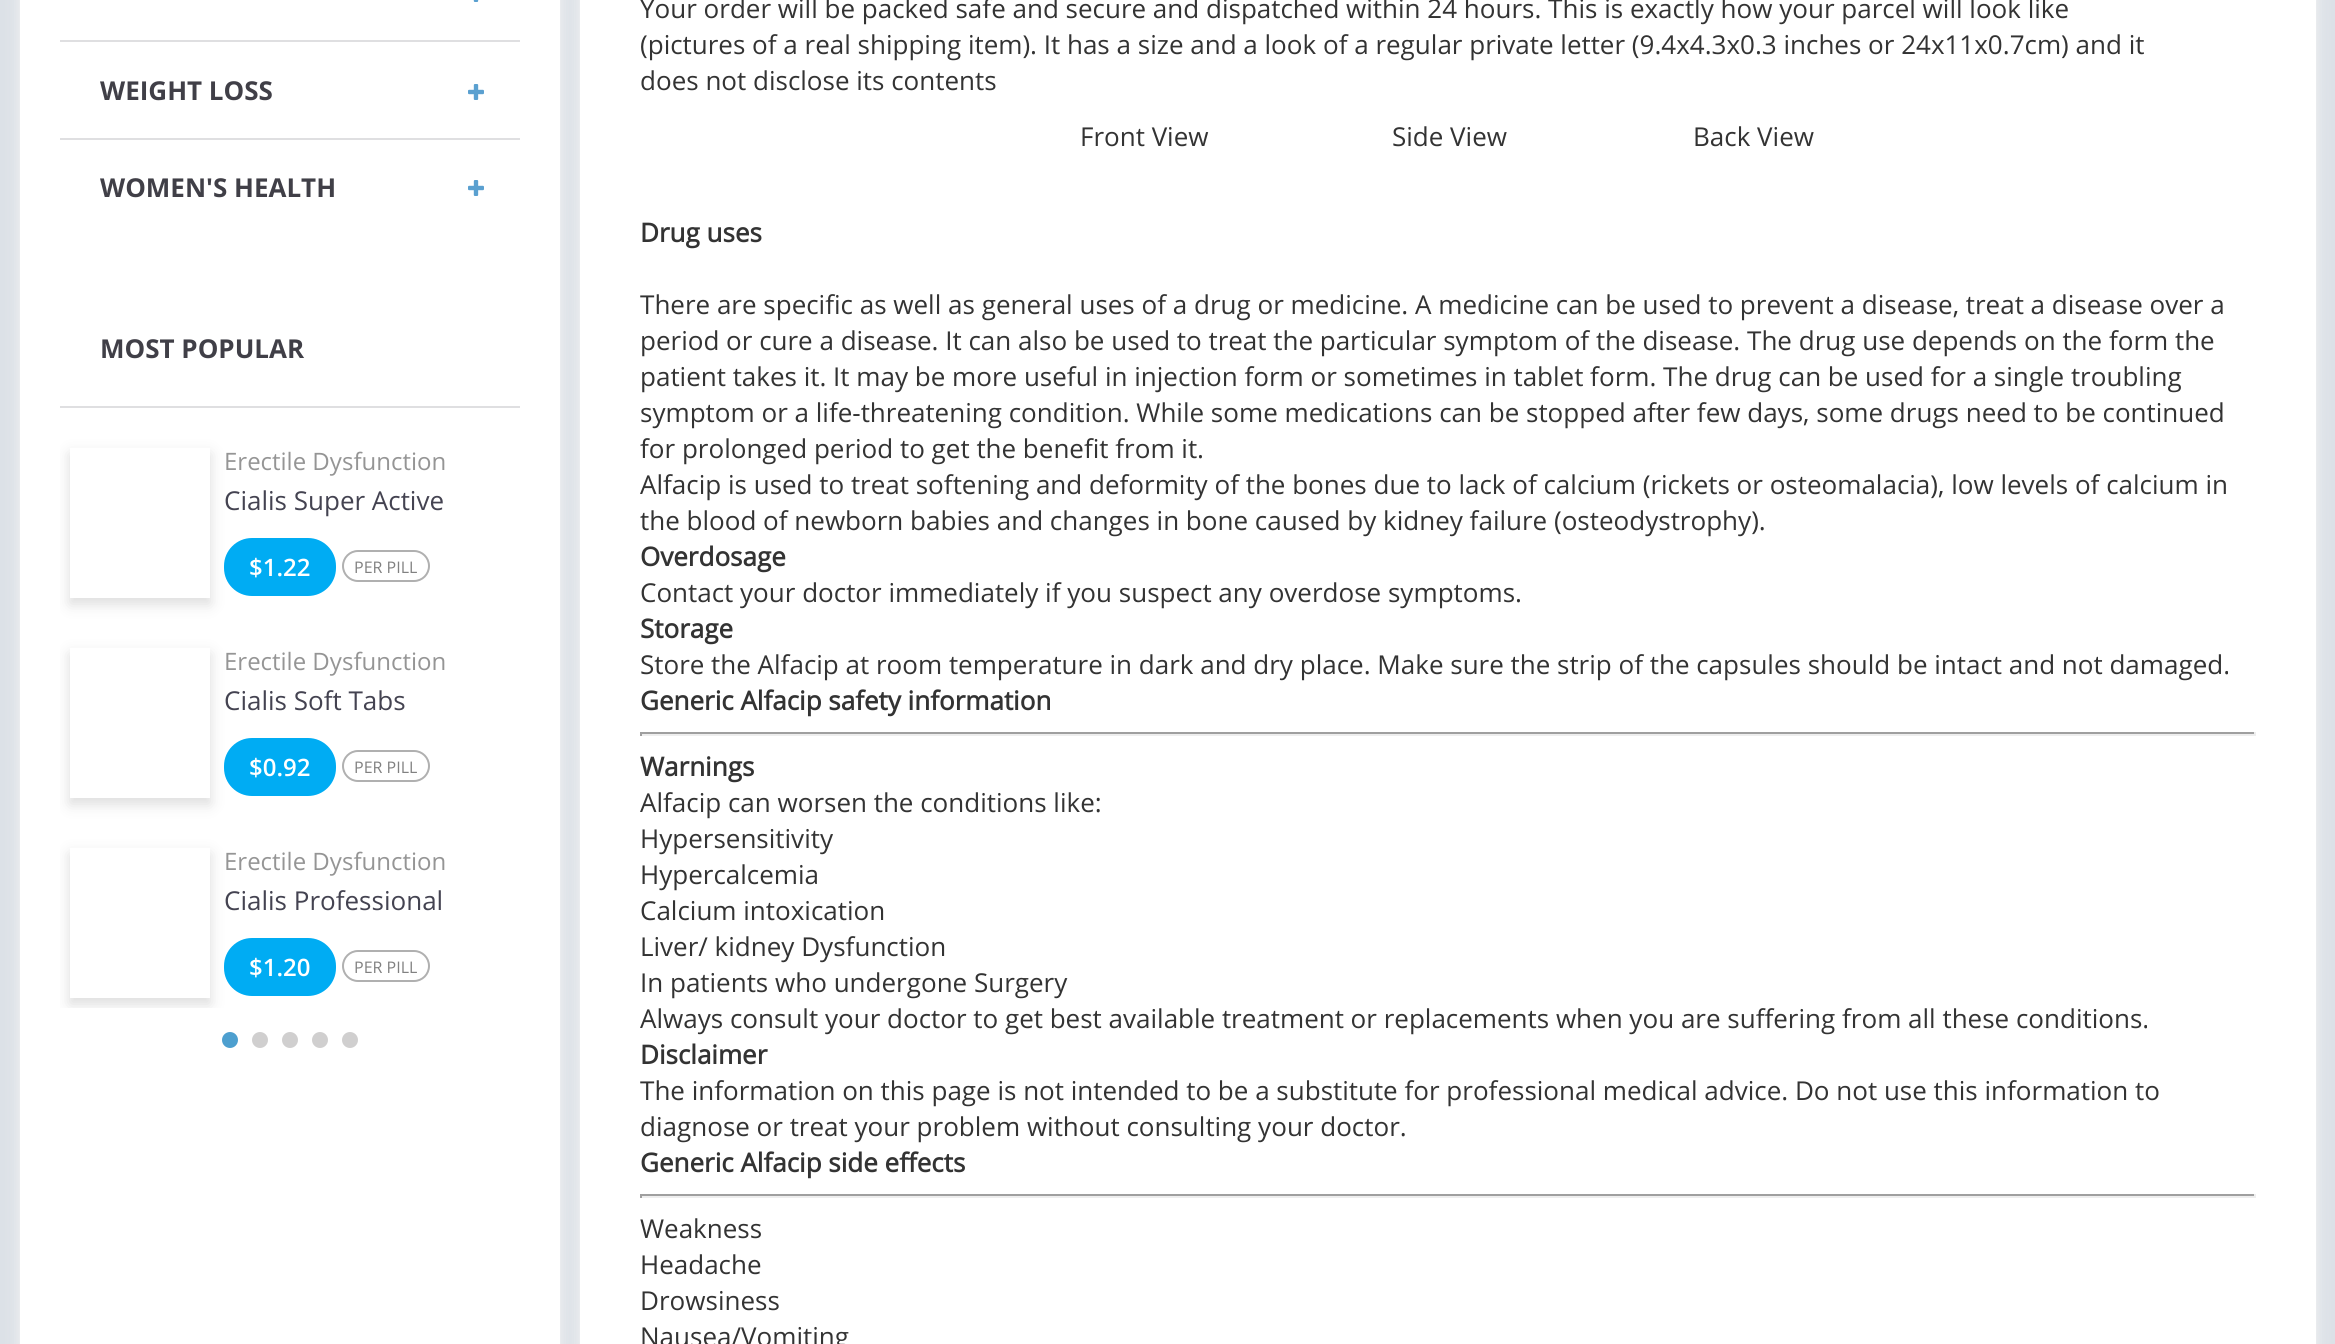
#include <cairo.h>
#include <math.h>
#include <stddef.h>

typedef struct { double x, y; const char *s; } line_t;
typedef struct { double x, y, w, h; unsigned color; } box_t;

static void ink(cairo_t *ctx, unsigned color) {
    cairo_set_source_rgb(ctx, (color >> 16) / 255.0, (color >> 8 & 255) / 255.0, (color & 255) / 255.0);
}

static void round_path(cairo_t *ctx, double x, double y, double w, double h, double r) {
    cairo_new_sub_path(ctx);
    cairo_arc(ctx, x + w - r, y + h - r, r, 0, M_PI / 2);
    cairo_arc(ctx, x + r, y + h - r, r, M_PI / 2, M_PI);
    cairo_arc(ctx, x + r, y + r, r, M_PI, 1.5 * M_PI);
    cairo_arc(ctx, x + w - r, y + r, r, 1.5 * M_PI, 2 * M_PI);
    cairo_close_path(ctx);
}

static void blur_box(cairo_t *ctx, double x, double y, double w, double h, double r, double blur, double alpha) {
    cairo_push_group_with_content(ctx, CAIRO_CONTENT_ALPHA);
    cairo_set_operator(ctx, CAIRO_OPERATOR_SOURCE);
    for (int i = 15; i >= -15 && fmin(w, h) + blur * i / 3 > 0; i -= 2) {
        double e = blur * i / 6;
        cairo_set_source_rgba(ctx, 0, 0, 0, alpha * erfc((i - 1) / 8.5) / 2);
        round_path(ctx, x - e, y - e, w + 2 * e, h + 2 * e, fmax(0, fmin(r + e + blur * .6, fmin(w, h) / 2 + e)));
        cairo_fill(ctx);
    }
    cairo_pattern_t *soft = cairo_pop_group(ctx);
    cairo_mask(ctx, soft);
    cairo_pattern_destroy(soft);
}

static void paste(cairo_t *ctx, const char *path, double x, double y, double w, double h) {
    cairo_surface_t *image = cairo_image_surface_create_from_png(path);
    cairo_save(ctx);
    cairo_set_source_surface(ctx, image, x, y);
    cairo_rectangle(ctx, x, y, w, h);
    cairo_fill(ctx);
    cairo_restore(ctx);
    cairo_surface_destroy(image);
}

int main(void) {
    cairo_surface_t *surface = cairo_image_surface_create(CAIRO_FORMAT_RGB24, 2335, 1344);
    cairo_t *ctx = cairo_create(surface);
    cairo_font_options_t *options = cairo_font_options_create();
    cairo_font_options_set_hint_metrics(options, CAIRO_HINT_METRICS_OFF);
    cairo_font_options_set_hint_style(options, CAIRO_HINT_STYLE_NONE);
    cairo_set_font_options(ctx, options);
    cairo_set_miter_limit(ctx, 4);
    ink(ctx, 0xDCE1E7);
    cairo_paint(ctx);
    ink(ctx, 0xF5F5F5);
    blur_box(ctx, 20, -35, 540, 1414, 14, 7, 1);
    ink(ctx, 0xFFFFFF);
    cairo_rectangle(ctx, 20, 0, 540, 1344);
    cairo_fill(ctx);
    ink(ctx, 0xDFDFE1);
    cairo_rectangle(ctx, 60, 40, 460, 2);
    cairo_fill(ctx);
    paste(ctx, "media/1.png", 473, 0, 6, 2);
    cairo_rectangle(ctx, 60, 138, 460, 2);
    cairo_fill(ctx);
    cairo_select_font_face(ctx, "Open Sans", CAIRO_FONT_SLANT_NORMAL, CAIRO_FONT_WEIGHT_BOLD);
    cairo_set_font_size(ctx, 26);
    ink(ctx, 0x403F47);
    cairo_move_to(ctx, 100, 100);
    cairo_show_text(ctx, "WEIGHT LOSS");
    paste(ctx, "media/2.png", 468, 84, 16, 16);
    cairo_move_to(ctx, 100, 197);
    cairo_show_text(ctx, "WOMEN'S HEALTH");
    paste(ctx, "media/2.png", 468, 180, 16, 16);
    ink(ctx, 0xDFDFE1);
    cairo_rectangle(ctx, 60, 406, 460, 2);
    cairo_fill(ctx);
    ink(ctx, 0x403F47);
    cairo_move_to(ctx, 100, 358);
    cairo_show_text(ctx, "MOST POPULAR");
    cairo_save(ctx);
    cairo_rectangle(ctx, 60, 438, 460, 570);
    cairo_clip(ctx);
    cairo_set_fill_rule(ctx, CAIRO_FILL_RULE_EVEN_ODD);
    cairo_new_path(ctx);
    cairo_move_to(ctx, 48, 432);
    cairo_line_to(ctx, 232, 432);
    cairo_line_to(ctx, 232, 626);
    cairo_line_to(ctx, 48, 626);
    cairo_close_path(ctx);
    cairo_move_to(ctx, 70, 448);
    cairo_line_to(ctx, 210, 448);
    cairo_line_to(ctx, 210, 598);
    cairo_line_to(ctx, 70, 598);
    cairo_close_path(ctx);
    cairo_clip(ctx);
    ink(ctx, 0xDCDCDC);
    blur_box(ctx, 70, 454, 140, 150, 0, 7, 1);
    cairo_restore(ctx);
    cairo_select_font_face(ctx, "Open Sans", CAIRO_FONT_SLANT_NORMAL, CAIRO_FONT_WEIGHT_NORMAL);
    cairo_set_font_size(ctx, 24);
    ink(ctx, 0x959595);
    cairo_move_to(ctx, 224, 470);
    cairo_show_text(ctx, "Erectile Dysfunction");
    cairo_set_font_size(ctx, 26);
    ink(ctx, 0x444351);
    cairo_move_to(ctx, 224, 510);
    cairo_show_text(ctx, "Cialis Super Active");
    ink(ctx, 0x00ACF3);
    round_path(ctx, 224, 538, 112, 58, 28);
    cairo_fill(ctx);
    cairo_select_font_face(ctx, "Open Sans SemiBold", CAIRO_FONT_SLANT_NORMAL, CAIRO_FONT_WEIGHT_NORMAL);
    cairo_set_font_size(ctx, 24);
    ink(ctx, 0xFFFFFF);
    cairo_move_to(ctx, 249, 576);
    cairo_show_text(ctx, "$1.22");
    round_path(ctx, 343, 551, 86, 30, 15);
    ink(ctx, 0xB0B0B0);
    cairo_stroke(ctx);
    cairo_select_font_face(ctx, "Open Sans", CAIRO_FONT_SLANT_NORMAL, CAIRO_FONT_WEIGHT_NORMAL);
    cairo_set_font_size(ctx, 16);
    ink(ctx, 0x818181);
    cairo_move_to(ctx, 354, 573);
    cairo_show_text(ctx, "PER PILL");
    cairo_save(ctx);
    cairo_rectangle(ctx, 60, 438, 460, 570);
    cairo_clip(ctx);
    cairo_set_fill_rule(ctx, CAIRO_FILL_RULE_EVEN_ODD);
    cairo_new_path(ctx);
    cairo_move_to(ctx, 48, 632);
    cairo_line_to(ctx, 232, 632);
    cairo_line_to(ctx, 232, 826);
    cairo_line_to(ctx, 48, 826);
    cairo_close_path(ctx);
    cairo_move_to(ctx, 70, 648);
    cairo_line_to(ctx, 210, 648);
    cairo_line_to(ctx, 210, 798);
    cairo_line_to(ctx, 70, 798);
    cairo_close_path(ctx);
    cairo_clip(ctx);
    ink(ctx, 0xDCDCDC);
    blur_box(ctx, 70, 654, 140, 150, 0, 7, 1);
    cairo_restore(ctx);
    cairo_set_font_size(ctx, 24);
    ink(ctx, 0x959595);
    cairo_move_to(ctx, 224, 670);
    cairo_show_text(ctx, "Erectile Dysfunction");
    cairo_set_font_size(ctx, 26);
    ink(ctx, 0x444351);
    cairo_move_to(ctx, 224, 710);
    cairo_show_text(ctx, "Cialis Soft Tabs");
    ink(ctx, 0x00ACF3);
    round_path(ctx, 224, 738, 112, 58, 28);
    cairo_fill(ctx);
    cairo_select_font_face(ctx, "Open Sans SemiBold", CAIRO_FONT_SLANT_NORMAL, CAIRO_FONT_WEIGHT_NORMAL);
    cairo_set_font_size(ctx, 24);
    ink(ctx, 0xFFFFFF);
    cairo_move_to(ctx, 249, 776);
    cairo_show_text(ctx, "$0.92");
    round_path(ctx, 343, 751, 86, 30, 15);
    ink(ctx, 0xB0B0B0);
    cairo_stroke(ctx);
    cairo_select_font_face(ctx, "Open Sans", CAIRO_FONT_SLANT_NORMAL, CAIRO_FONT_WEIGHT_NORMAL);
    cairo_set_font_size(ctx, 16);
    ink(ctx, 0x818181);
    cairo_move_to(ctx, 354, 773);
    cairo_show_text(ctx, "PER PILL");
    cairo_save(ctx);
    cairo_rectangle(ctx, 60, 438, 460, 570);
    cairo_clip(ctx);
    cairo_set_fill_rule(ctx, CAIRO_FILL_RULE_EVEN_ODD);
    cairo_new_path(ctx);
    cairo_move_to(ctx, 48, 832);
    cairo_line_to(ctx, 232, 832);
    cairo_line_to(ctx, 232, 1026);
    cairo_line_to(ctx, 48, 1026);
    cairo_close_path(ctx);
    cairo_move_to(ctx, 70, 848);
    cairo_line_to(ctx, 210, 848);
    cairo_line_to(ctx, 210, 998);
    cairo_line_to(ctx, 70, 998);
    cairo_close_path(ctx);
    cairo_clip(ctx);
    ink(ctx, 0xDCDCDC);
    blur_box(ctx, 70, 854, 140, 150, 0, 7, 1);
    cairo_restore(ctx);
    cairo_set_font_size(ctx, 24);
    ink(ctx, 0x959595);
    cairo_move_to(ctx, 224, 870);
    cairo_show_text(ctx, "Erectile Dysfunction");
    cairo_set_font_size(ctx, 26);
    ink(ctx, 0x444351);
    cairo_move_to(ctx, 224, 910);
    cairo_show_text(ctx, "Cialis Professional");
    ink(ctx, 0x00ACF3);
    round_path(ctx, 224, 938, 112, 58, 28);
    cairo_fill(ctx);
    cairo_select_font_face(ctx, "Open Sans SemiBold", CAIRO_FONT_SLANT_NORMAL, CAIRO_FONT_WEIGHT_NORMAL);
    cairo_set_font_size(ctx, 24);
    ink(ctx, 0xFFFFFF);
    cairo_move_to(ctx, 249, 976);
    cairo_show_text(ctx, "$1.20");
    round_path(ctx, 343, 951, 86, 30, 15);
    ink(ctx, 0xB0B0B0);
    cairo_stroke(ctx);
    cairo_select_font_face(ctx, "Open Sans", CAIRO_FONT_SLANT_NORMAL, CAIRO_FONT_WEIGHT_NORMAL);
    cairo_set_font_size(ctx, 16);
    ink(ctx, 0x818181);
    cairo_move_to(ctx, 354, 973);
    cairo_show_text(ctx, "PER PILL");
    ink(ctx, 0x4D9FCF);
    cairo_new_path(ctx);
    cairo_arc(ctx, 230, 1040, 8, 0, 2 * M_PI);
    cairo_fill(ctx);
    ink(ctx, 0xD0CFCF);
    cairo_arc(ctx, 260, 1040, 8, 0, 2 * M_PI);
    cairo_fill(ctx);
    cairo_arc(ctx, 290, 1040, 8, 0, 2 * M_PI);
    cairo_fill(ctx);
    cairo_arc(ctx, 320, 1040, 8, 0, 2 * M_PI);
    cairo_fill(ctx);
    cairo_arc(ctx, 350, 1040, 8, 0, 2 * M_PI);
    cairo_fill(ctx);
    ink(ctx, 0xF5F5F5);
    blur_box(ctx, 580, -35, 1736, 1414, 14, 7, 1);
    ink(ctx, 0xFFFFFF);
    cairo_rectangle(ctx, 580, 0, 1736, 1344);
    cairo_fill(ctx);
    cairo_set_font_size(ctx, 26);
    ink(ctx, 0x333333);
    {
        static const line_t items[] = {
            {640, 18, "Your order will be packed safe and secure and dispatched within 24 hours. This is exactly how your parcel will look like"},
            {640, 54, "(pictures of a real shipping item). It has a size and a look of a regular private letter (9.4x4.3x0.3 inches or 24x11x0.7cm) and it"},
            {640, 90, "does not disclose its contents"},
            {1080, 146, "Front View"},
            {1392, 146, "Side View"},
            {1693, 146, "Back View"},
        };
        for (size_t i = 0; i < sizeof items / sizeof *items; i++) {
            cairo_move_to(ctx, items[i].x, items[i].y);
            cairo_show_text(ctx, items[i].s);
        }
    }
    cairo_select_font_face(ctx, "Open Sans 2", CAIRO_FONT_SLANT_NORMAL, CAIRO_FONT_WEIGHT_BOLD);
    cairo_move_to(ctx, 640, 242);
    cairo_show_text(ctx, "Drug uses");
    cairo_select_font_face(ctx, "Open Sans", CAIRO_FONT_SLANT_NORMAL, CAIRO_FONT_WEIGHT_NORMAL);
    {
        static const line_t items[] = {
            {640, 314, "There are specific as well as general uses of a drug or medicine. A medicine can be used to prevent a disease, treat a disease over a"},
            {640, 350, "period or cure a disease. It can also be used to treat the particular symptom of the disease. The drug use depends on the form the"},
            {640, 386, "patient takes it. It may be more useful in injection form or sometimes in tablet form. The drug can be used for a single troubling"},
            {640, 422, "symptom or a life-threatening condition. While some medications can be stopped after few days, some drugs need to be continued"},
            {640, 458, "for prolonged period to get the benefit from it."},
            {640, 494, "Alfacip is used to treat softening and deformity of the bones due to lack of calcium (rickets or osteomalacia), low levels of calcium in"},
            {640, 530, "the blood of newborn babies and changes in bone caused by kidney failure (osteodystrophy)."},
        };
        for (size_t i = 0; i < sizeof items / sizeof *items; i++) {
            cairo_move_to(ctx, items[i].x, items[i].y);
            cairo_show_text(ctx, items[i].s);
        }
    }
    cairo_select_font_face(ctx, "Open Sans 2", CAIRO_FONT_SLANT_NORMAL, CAIRO_FONT_WEIGHT_BOLD);
    cairo_move_to(ctx, 640, 566);
    cairo_show_text(ctx, "Overdosage");
    cairo_select_font_face(ctx, "Open Sans", CAIRO_FONT_SLANT_NORMAL, CAIRO_FONT_WEIGHT_NORMAL);
    cairo_move_to(ctx, 640, 602);
    cairo_show_text(ctx, "Contact your doctor immediately if you suspect any overdose symptoms.");
    cairo_select_font_face(ctx, "Open Sans 2", CAIRO_FONT_SLANT_NORMAL, CAIRO_FONT_WEIGHT_BOLD);
    cairo_move_to(ctx, 640, 638);
    cairo_show_text(ctx, "Storage");
    cairo_select_font_face(ctx, "Open Sans", CAIRO_FONT_SLANT_NORMAL, CAIRO_FONT_WEIGHT_NORMAL);
    cairo_move_to(ctx, 640, 674);
    cairo_show_text(ctx, "Store the Alfacip at room temperature in dark and dry place. Make sure the strip of the capsules should be intact and not damaged.");
    cairo_select_font_face(ctx, "Open Sans 2", CAIRO_FONT_SLANT_NORMAL, CAIRO_FONT_WEIGHT_BOLD);
    cairo_move_to(ctx, 640, 710);
    cairo_show_text(ctx, "Generic Alfacip safety information");
    {
        static const box_t items[] = {
            {640, 732, 1616, 2, 0x9F9F9F},
            {2254, 732, 2, 4, 0xEEEEEE},
            {640, 734, 1616, 2, 0xEEEEEE},
            {640, 732, 2, 4, 0x9F9F9F},
        };
        for (size_t i = 0; i < sizeof items / sizeof *items; i++) {
            ink(ctx, items[i].color);
            cairo_rectangle(ctx, items[i].x, items[i].y, items[i].w, items[i].h);
            cairo_fill(ctx);
        }
    }
    ink(ctx, 0x333333);
    cairo_move_to(ctx, 640, 776);
    cairo_show_text(ctx, "Warnings");
    cairo_select_font_face(ctx, "Open Sans", CAIRO_FONT_SLANT_NORMAL, CAIRO_FONT_WEIGHT_NORMAL);
    {
        static const line_t items[] = {
            {640, 812, "Alfacip can worsen the conditions like:"},
            {640, 848, "Hypersensitivity"},
            {640, 884, "Hypercalcemia"},
            {640, 920, "Calcium intoxication"},
            {640, 956, "Liver/ kidney Dysfunction"},
            {640, 992, "In patients who undergone Surgery"},
            {640, 1028, "Always consult your doctor to get best available treatment or replacements when you are suffering from all these conditions."},
        };
        for (size_t i = 0; i < sizeof items / sizeof *items; i++) {
            cairo_move_to(ctx, items[i].x, items[i].y);
            cairo_show_text(ctx, items[i].s);
        }
    }
    cairo_select_font_face(ctx, "Open Sans 2", CAIRO_FONT_SLANT_NORMAL, CAIRO_FONT_WEIGHT_BOLD);
    cairo_move_to(ctx, 640, 1064);
    cairo_show_text(ctx, "Disclaimer");
    cairo_select_font_face(ctx, "Open Sans", CAIRO_FONT_SLANT_NORMAL, CAIRO_FONT_WEIGHT_NORMAL);
    cairo_move_to(ctx, 640, 1100);
    cairo_show_text(ctx, "The information on this page is not intended to be a substitute for professional medical advice. Do not use this information to");
    cairo_move_to(ctx, 640, 1136);
    cairo_show_text(ctx, "diagnose or treat your problem without consulting your doctor.");
    cairo_select_font_face(ctx, "Open Sans 2", CAIRO_FONT_SLANT_NORMAL, CAIRO_FONT_WEIGHT_BOLD);
    cairo_move_to(ctx, 640, 1172);
    cairo_show_text(ctx, "Generic Alfacip side effects");
    {
        static const box_t items[] = {
            {640, 1194, 1616, 2, 0x9F9F9F},
            {2254, 1194, 2, 4, 0xEEEEEE},
            {640, 1196, 1616, 2, 0xEEEEEE},
            {640, 1194, 2, 4, 0x9F9F9F},
        };
        for (size_t i = 0; i < sizeof items / sizeof *items; i++) {
            ink(ctx, items[i].color);
            cairo_rectangle(ctx, items[i].x, items[i].y, items[i].w, items[i].h);
            cairo_fill(ctx);
        }
    }
    cairo_select_font_face(ctx, "Open Sans", CAIRO_FONT_SLANT_NORMAL, CAIRO_FONT_WEIGHT_NORMAL);
    ink(ctx, 0x333333);
    {
        static const line_t items[] = {
            {640, 1238, "Weakness"},
            {640, 1274, "Headache"},
            {640, 1310, "Drowsiness"},
            {640, 1346, "Nausea/Vomiting"},
        };
        for (size_t i = 0; i < sizeof items / sizeof *items; i++) {
            cairo_move_to(ctx, items[i].x, items[i].y);
            cairo_show_text(ctx, items[i].s);
        }
    }
    cairo_surface_write_to_png(surface, "image.png");
    cairo_font_options_destroy(options);
    cairo_destroy(ctx);
    cairo_surface_destroy(surface);
    return 0;
}
